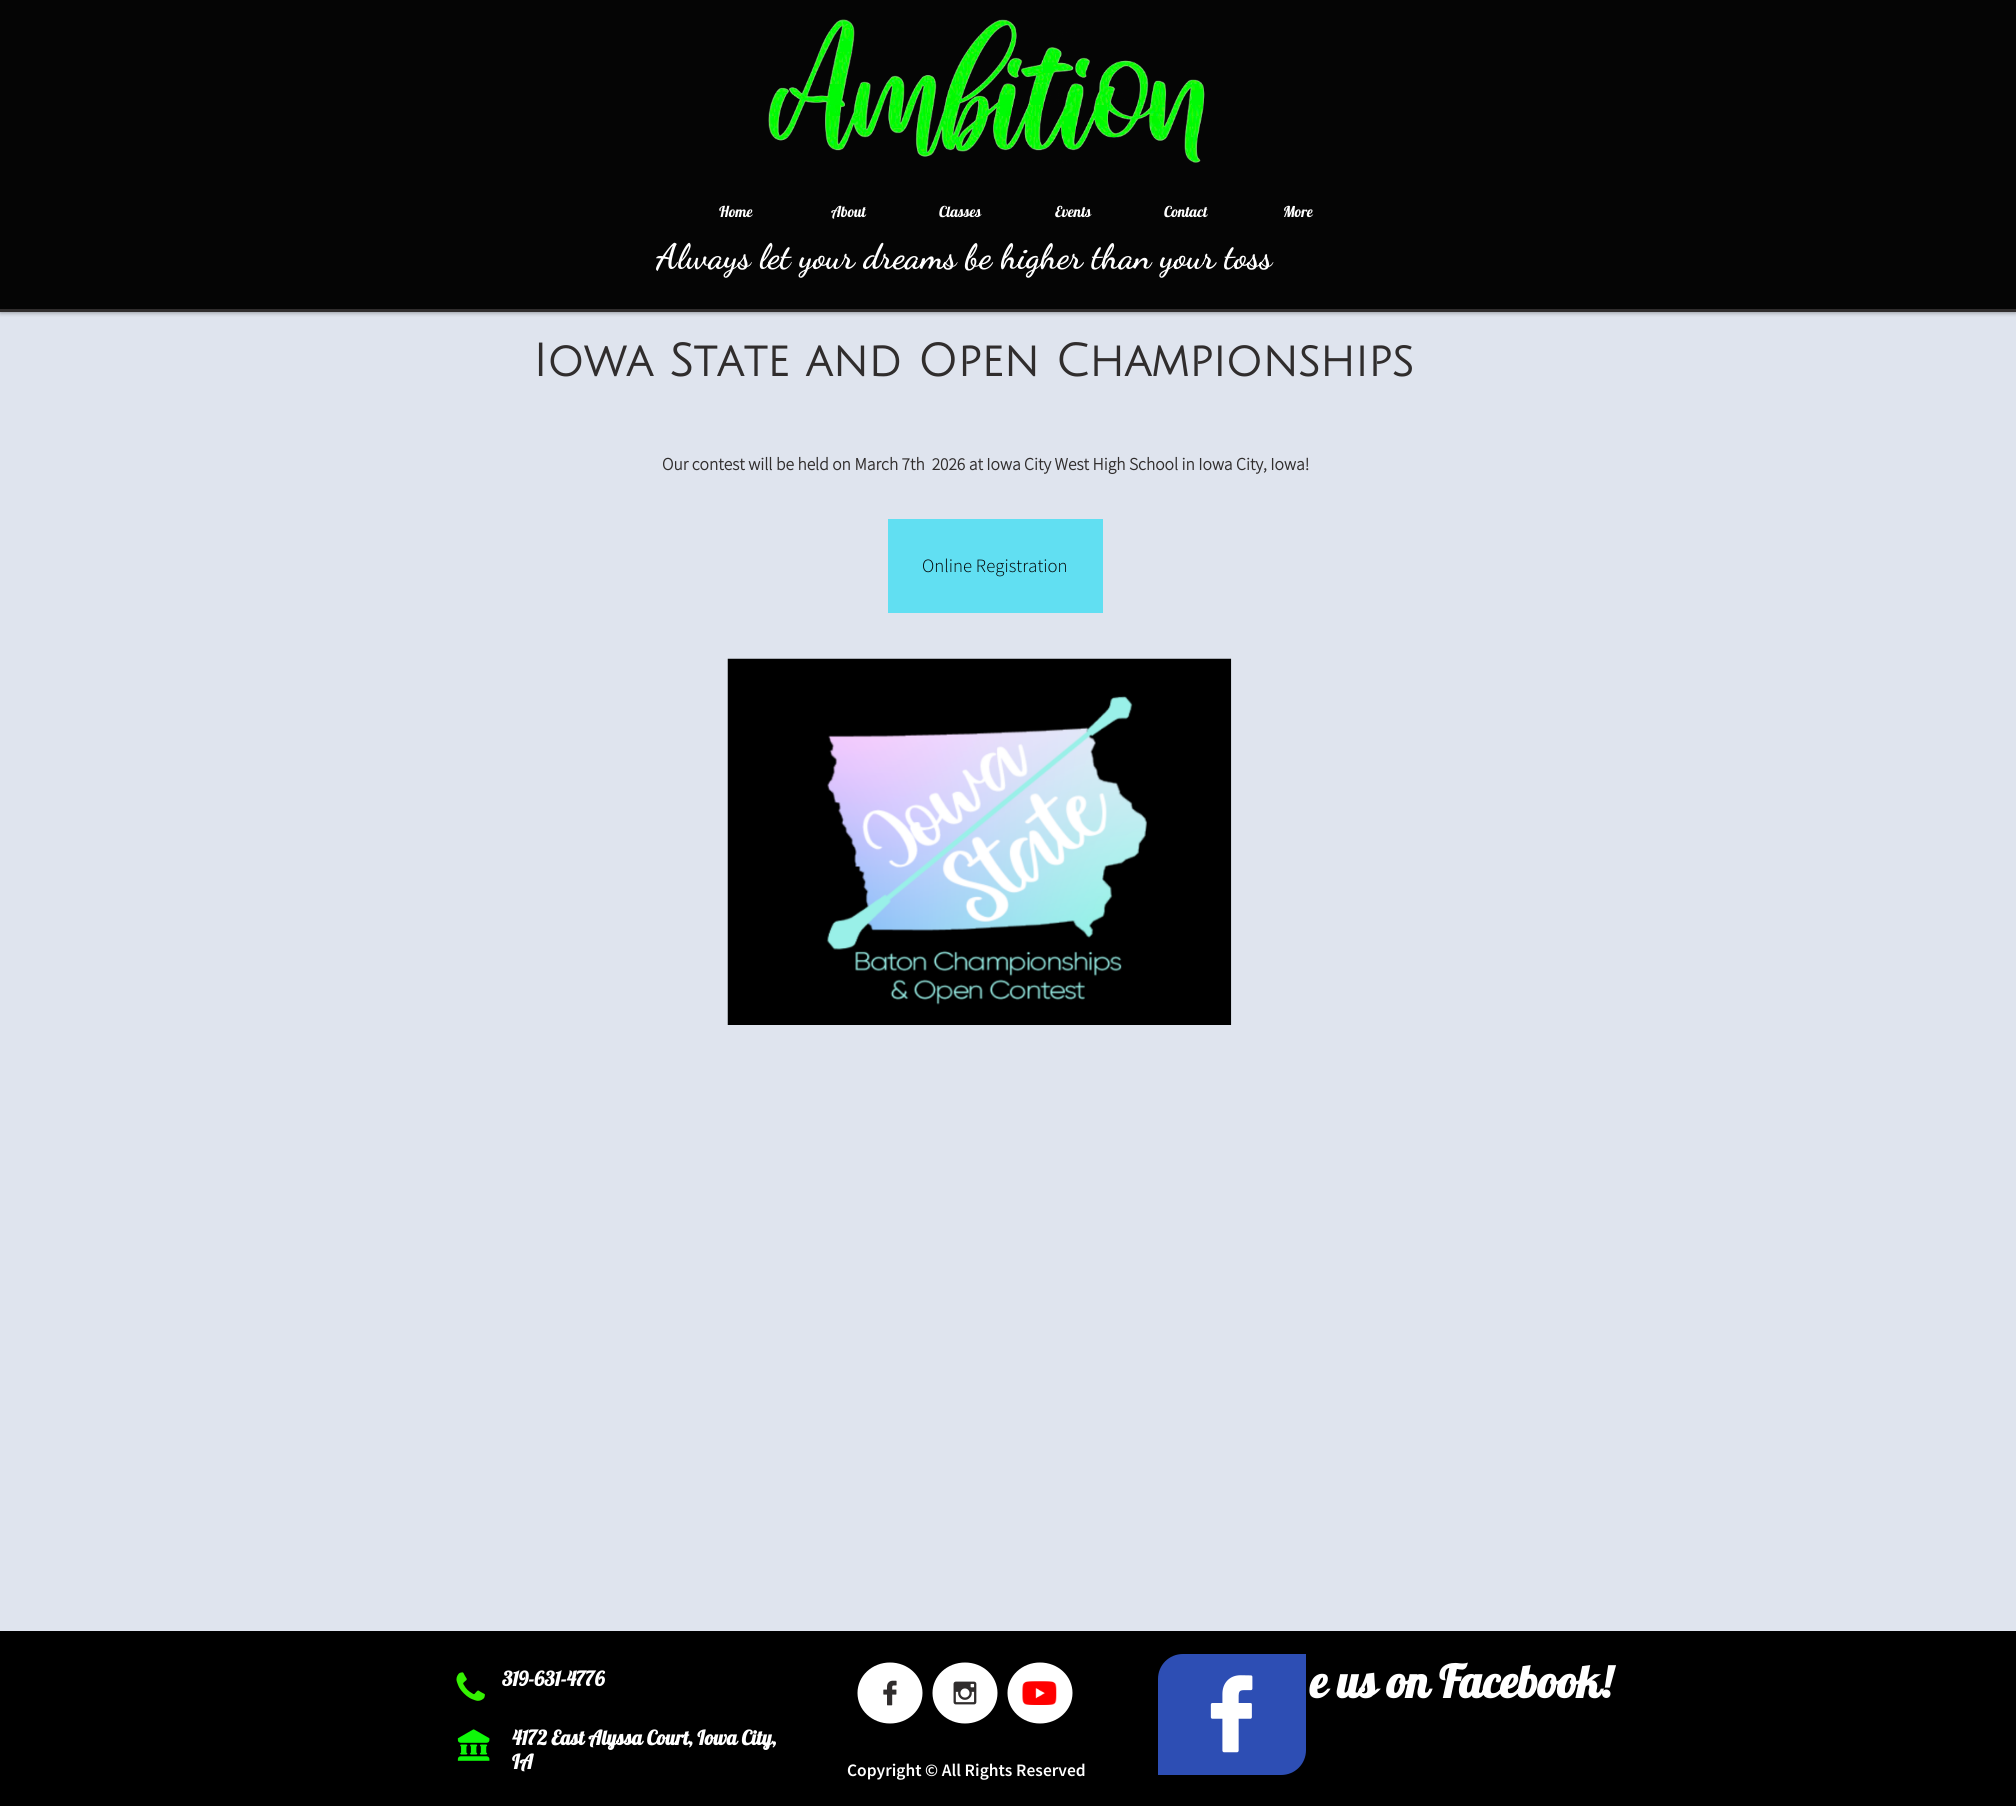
#include <cairo.h>
#include <math.h>
#include <stddef.h>

typedef struct { double x, y; const char *s; } line_t;

static void ink(cairo_t *ctx, unsigned color) {
    cairo_set_source_rgb(ctx, (color >> 16) / 255.0, (color >> 8 & 255) / 255.0, (color & 255) / 255.0);
}

static void round_path(cairo_t *ctx, double x, double y, double w, double h, double r) {
    cairo_new_sub_path(ctx);
    cairo_arc(ctx, x + w - r, y + h - r, r, 0, M_PI / 2);
    cairo_arc(ctx, x + r, y + h - r, r, M_PI / 2, M_PI);
    cairo_arc(ctx, x + r, y + r, r, M_PI, 1.5 * M_PI);
    cairo_arc(ctx, x + w - r, y + r, r, 1.5 * M_PI, 2 * M_PI);
    cairo_close_path(ctx);
}

static void blur_box(cairo_t *ctx, double x, double y, double w, double h, double r, double blur, double alpha) {
    cairo_push_group_with_content(ctx, CAIRO_CONTENT_ALPHA);
    cairo_set_operator(ctx, CAIRO_OPERATOR_SOURCE);
    for (int i = 15; i >= -15 && fmin(w, h) + blur * i / 3 > 0; i -= 2) {
        double e = blur * i / 6;
        cairo_set_source_rgba(ctx, 0, 0, 0, alpha * erfc((i - 1) / 8.5) / 2);
        round_path(ctx, x - e, y - e, w + 2 * e, h + 2 * e, fmax(0, fmin(r + e + blur * .6, fmin(w, h) / 2 + e)));
        cairo_fill(ctx);
    }
    cairo_pattern_t *soft = cairo_pop_group(ctx);
    cairo_mask(ctx, soft);
    cairo_pattern_destroy(soft);
}

static void paste(cairo_t *ctx, const char *path, double x, double y, double w, double h) {
    cairo_surface_t *image = cairo_image_surface_create_from_png(path);
    cairo_save(ctx);
    cairo_set_source_surface(ctx, image, x, y);
    cairo_rectangle(ctx, x, y, w, h);
    cairo_fill(ctx);
    cairo_restore(ctx);
    cairo_surface_destroy(image);
}

int main(void) {
    cairo_surface_t *surface = cairo_image_surface_create(CAIRO_FORMAT_RGB24, 2016, 1806);
    cairo_t *ctx = cairo_create(surface);
    cairo_font_options_t *options = cairo_font_options_create();
    cairo_font_options_set_hint_metrics(options, CAIRO_HINT_METRICS_OFF);
    cairo_font_options_set_hint_style(options, CAIRO_HINT_STYLE_NONE);
    cairo_set_font_options(ctx, options);
    cairo_set_miter_limit(ctx, 4);
    ink(ctx, 0x050505);
    cairo_paint(ctx);
    ink(ctx, 0xDFE4EE);
    cairo_rectangle(ctx, 0, 312, 2016, 1319);
    cairo_fill(ctx);
    cairo_save(ctx);
    cairo_rectangle(ctx, 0, 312, 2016, 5);
    cairo_clip(ctx);
    ink(ctx, 0x000000);
    blur_box(ctx, 0, 0, 2016, 311, 0, 3, 0.64);
    cairo_restore(ctx);
    ink(ctx, 0x302D2D);
    cairo_rectangle(ctx, 0, 309, 2016, 3);
    cairo_fill(ctx);
    paste(ctx, "media/1.png", 768, 19, 437, 144);
    cairo_select_font_face(ctx, "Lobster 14", CAIRO_FONT_SLANT_NORMAL, CAIRO_FONT_WEIGHT_NORMAL);
    cairo_set_font_size(ctx, 15);
    ink(ctx, 0xFFFFFF);
    {
        static const line_t items[] = {
            {719, 217, "Home"},
            {831, 217, "About"},
            {939, 217, "Classes"},
            {1055, 217, "Events"},
            {1164, 217, "Contact"},
            {1283, 217, "More"},
        };
        for (size_t i = 0; i < sizeof items / sizeof *items; i++) {
            cairo_move_to(ctx, items[i].x, items[i].y);
            cairo_show_text(ctx, items[i].s);
        }
    }
    cairo_select_font_face(ctx, "Dancing Script", CAIRO_FONT_SLANT_NORMAL, CAIRO_FONT_WEIGHT_BOLD);
    cairo_set_font_size(ctx, 35);
    cairo_move_to(ctx, 656, 268);
    cairo_show_text(ctx, "Always let your dreams be higher than your toss");
    cairo_select_font_face(ctx, "Julius Sans One", CAIRO_FONT_SLANT_NORMAL, CAIRO_FONT_WEIGHT_BOLD);
    cairo_set_font_size(ctx, 45);
    ink(ctx, 0x302D2D);
    cairo_move_to(ctx, 533, 376);
    cairo_show_text(ctx, "Iowa State and Open Championships");
    cairo_select_font_face(ctx, "Source Sans Pro", CAIRO_FONT_SLANT_NORMAL, CAIRO_FONT_WEIGHT_BOLD);
    cairo_set_font_size(ctx, 17.5);
    cairo_move_to(ctx, 662, 470);
    cairo_show_text(ctx, "Our contest will be held on March 7th  2026 at Iowa City West High School in Iowa City, Iowa!");
    ink(ctx, 0x61DFF2);
    cairo_rectangle(ctx, 888, 519, 215, 94);
    cairo_fill(ctx);
    cairo_select_font_face(ctx, "Source Sans Pro Light", CAIRO_FONT_SLANT_NORMAL, CAIRO_FONT_WEIGHT_NORMAL);
    cairo_set_font_size(ctx, 18.75);
    ink(ctx, 0x000000);
    cairo_move_to(ctx, 922, 572);
    cairo_show_text(ctx, "Online Registration");
    paste(ctx, "media/2.png", 727, 658, 505, 367);
    cairo_rectangle(ctx, 0, 1631, 2016, 175);
    cairo_fill(ctx);
    paste(ctx, "media/3.png", 456, 1672, 29, 29);
    cairo_select_font_face(ctx, "Lobster 14", CAIRO_FONT_SLANT_NORMAL, CAIRO_FONT_WEIGHT_BOLD);
    cairo_set_font_size(ctx, 20);
    ink(ctx, 0xFFFFFF);
    cairo_move_to(ctx, 502, 1686);
    cairo_show_text(ctx, "319-631-4776");
    cairo_new_path(ctx);
    cairo_move_to(ctx, 890, 1662.5);
    cairo_curve_to(ctx, 908, 1662.5, 922.5, 1676, 922.5, 1693);
    cairo_curve_to(ctx, 922.5, 1710, 908, 1723.5, 890, 1723.5);
    cairo_curve_to(ctx, 872, 1723.5, 857.5, 1710, 857.5, 1693);
    cairo_curve_to(ctx, 857.5, 1676, 872, 1662.5, 890, 1662.5);
    cairo_close_path(ctx);
    cairo_fill(ctx);
    paste(ctx, "media/4.png", 883, 1680, 14, 26);
    cairo_new_path(ctx);
    cairo_move_to(ctx, 965, 1662.5);
    cairo_curve_to(ctx, 983, 1662.5, 997.5, 1676, 997.5, 1693);
    cairo_curve_to(ctx, 997.5, 1710, 983, 1723.5, 965, 1723.5);
    cairo_curve_to(ctx, 947, 1723.5, 932.5, 1710, 932.5, 1693);
    cairo_curve_to(ctx, 932.5, 1676, 947, 1662.5, 965, 1662.5);
    cairo_close_path(ctx);
    cairo_fill(ctx);
    paste(ctx, "media/5.png", 953, 1681, 24, 24);
    cairo_new_path(ctx);
    cairo_move_to(ctx, 1040, 1662.5);
    cairo_curve_to(ctx, 1058, 1662.5, 1072.5, 1676, 1072.5, 1693);
    cairo_curve_to(ctx, 1072.5, 1710, 1058, 1723.5, 1040, 1723.5);
    cairo_curve_to(ctx, 1022, 1723.5, 1007.5, 1710, 1007.5, 1693);
    cairo_curve_to(ctx, 1007.5, 1676, 1022, 1662.5, 1040, 1662.5);
    cairo_close_path(ctx);
    cairo_fill(ctx);
    paste(ctx, "media/6.png", 1022, 1681, 35, 24);
    ink(ctx, 0x2D4EB4);
    cairo_new_path(ctx);
    cairo_move_to(ctx, 1183, 1654);
    cairo_line_to(ctx, 1306, 1654);
    cairo_line_to(ctx, 1306, 1750);
    cairo_curve_to(ctx, 1306, 1764, 1295, 1775, 1281, 1775);
    cairo_line_to(ctx, 1158, 1775);
    cairo_line_to(ctx, 1158, 1679);
    cairo_curve_to(ctx, 1158, 1665, 1169, 1654, 1183, 1654);
    cairo_close_path(ctx);
    cairo_fill(ctx);
    paste(ctx, "media/7.png", 1210, 1675, 43, 78);
    cairo_set_font_size(ctx, 45);
    ink(ctx, 0xFFFFFF);
    cairo_move_to(ctx, 1310, 1698);
    cairo_show_text(ctx, "e us on Facebook!");
    paste(ctx, "media/8.png", 457, 1729, 33, 32);
    cairo_set_font_size(ctx, 20);
    cairo_move_to(ctx, 512, 1745);
    cairo_show_text(ctx, "4172 East Alyssa Court, Iowa City,");
    cairo_move_to(ctx, 512, 1769);
    cairo_show_text(ctx, "IA");
    cairo_select_font_face(ctx, "Source Sans Pro SemiBold", CAIRO_FONT_SLANT_NORMAL, CAIRO_FONT_WEIGHT_NORMAL);
    cairo_set_font_size(ctx, 17.5);
    cairo_move_to(ctx, 847, 1776);
    cairo_show_text(ctx, "Copyright © All Rights Reserved");
    cairo_surface_write_to_png(surface, "image.png");
    cairo_font_options_destroy(options);
    cairo_destroy(ctx);
    cairo_surface_destroy(surface);
    return 0;
}
